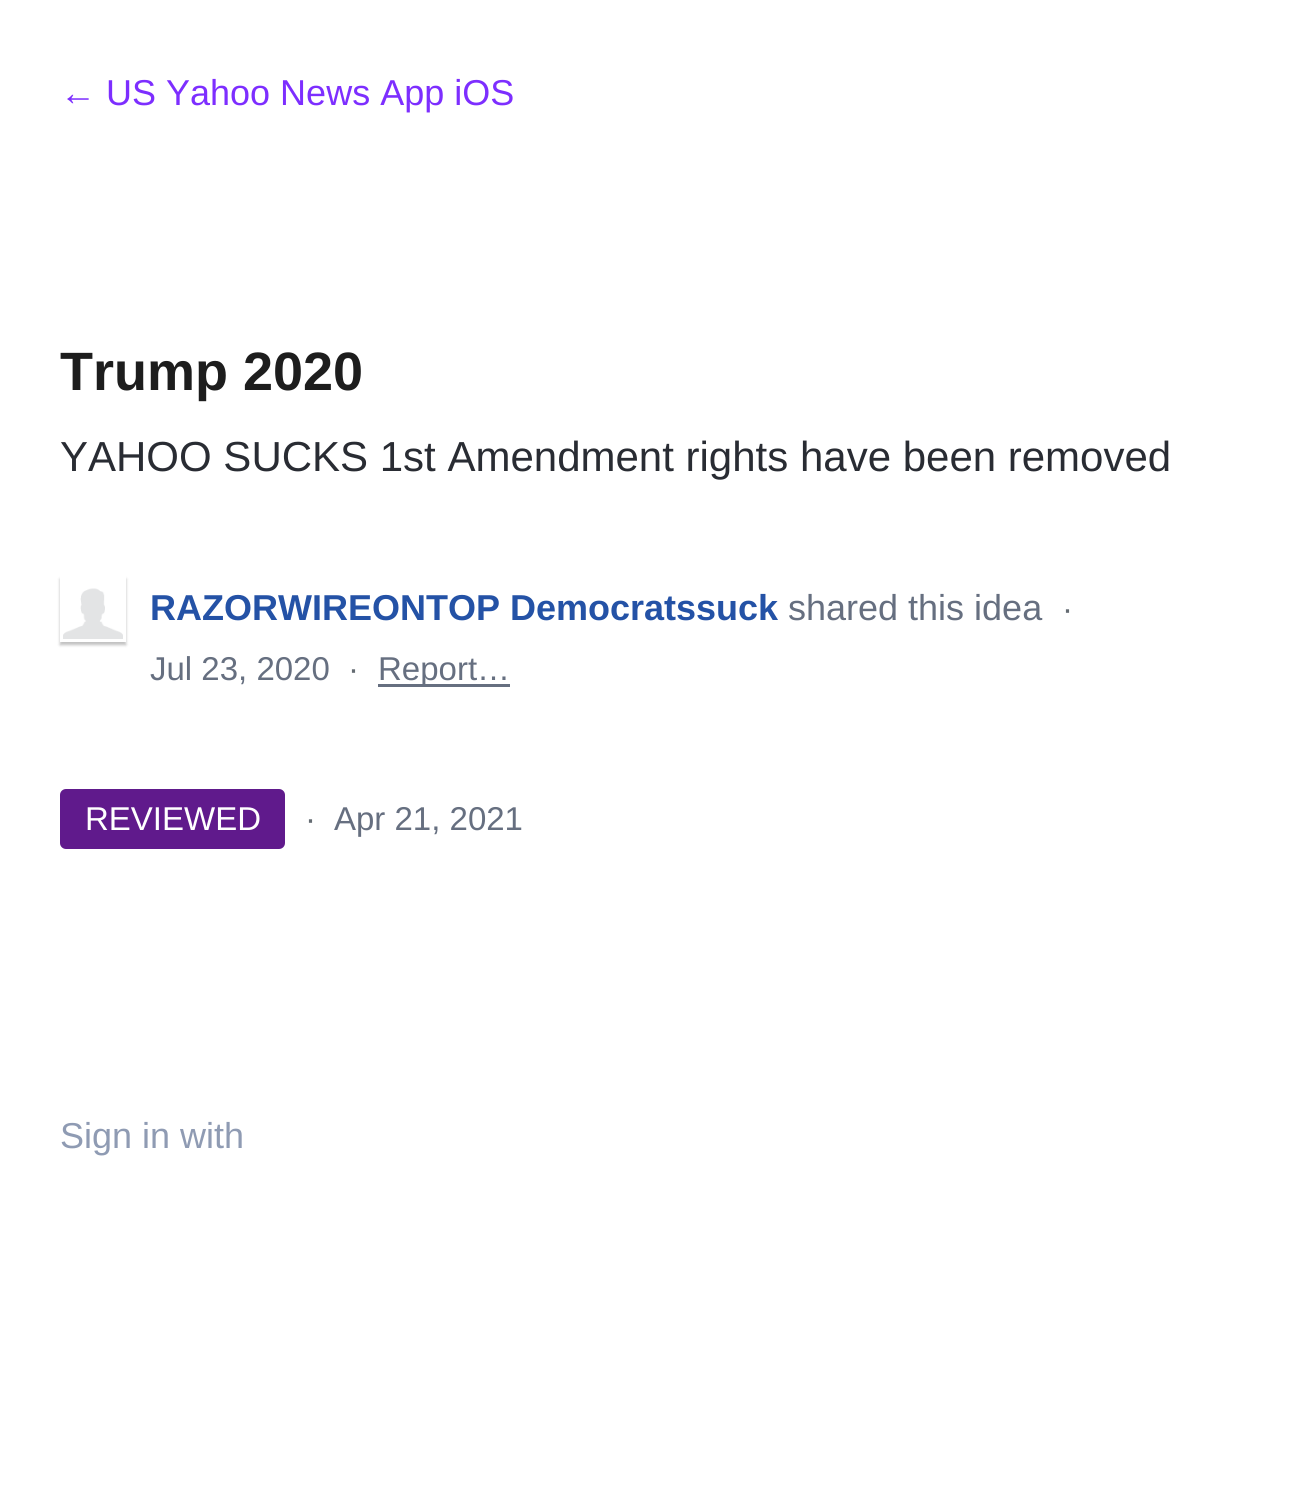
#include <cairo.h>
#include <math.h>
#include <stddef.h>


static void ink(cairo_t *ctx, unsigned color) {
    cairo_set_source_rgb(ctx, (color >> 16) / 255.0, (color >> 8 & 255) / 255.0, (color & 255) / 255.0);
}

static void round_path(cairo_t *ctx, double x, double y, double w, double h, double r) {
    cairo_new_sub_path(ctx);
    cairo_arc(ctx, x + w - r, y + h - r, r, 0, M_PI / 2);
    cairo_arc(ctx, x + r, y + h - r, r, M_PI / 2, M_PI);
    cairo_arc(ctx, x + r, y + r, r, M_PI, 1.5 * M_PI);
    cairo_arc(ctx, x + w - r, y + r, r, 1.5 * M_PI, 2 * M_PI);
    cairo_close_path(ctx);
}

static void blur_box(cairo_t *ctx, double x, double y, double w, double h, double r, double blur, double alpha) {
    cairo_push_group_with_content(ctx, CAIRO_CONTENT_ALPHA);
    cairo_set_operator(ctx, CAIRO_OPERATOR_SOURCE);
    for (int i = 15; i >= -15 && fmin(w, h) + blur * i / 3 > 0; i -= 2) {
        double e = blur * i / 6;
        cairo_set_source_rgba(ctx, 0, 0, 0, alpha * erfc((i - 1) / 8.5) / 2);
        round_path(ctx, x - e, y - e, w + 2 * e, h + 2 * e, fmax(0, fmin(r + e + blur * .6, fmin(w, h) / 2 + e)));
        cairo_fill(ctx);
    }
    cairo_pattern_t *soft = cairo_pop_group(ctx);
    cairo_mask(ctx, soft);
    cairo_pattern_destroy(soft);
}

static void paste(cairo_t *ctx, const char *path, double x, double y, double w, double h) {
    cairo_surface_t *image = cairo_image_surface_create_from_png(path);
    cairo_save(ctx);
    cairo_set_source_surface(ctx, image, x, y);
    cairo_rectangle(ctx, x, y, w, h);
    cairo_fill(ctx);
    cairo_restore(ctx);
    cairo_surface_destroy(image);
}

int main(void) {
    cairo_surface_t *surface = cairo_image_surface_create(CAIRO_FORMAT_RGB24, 1290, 1488);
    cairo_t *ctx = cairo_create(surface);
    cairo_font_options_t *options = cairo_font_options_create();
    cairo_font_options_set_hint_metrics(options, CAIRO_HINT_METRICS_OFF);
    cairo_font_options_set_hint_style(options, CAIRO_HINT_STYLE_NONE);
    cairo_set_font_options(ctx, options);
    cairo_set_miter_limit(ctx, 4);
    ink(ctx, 0xFFFFFF);
    cairo_paint(ctx);
    cairo_select_font_face(ctx, "Liberation Sans", CAIRO_FONT_SLANT_NORMAL, CAIRO_FONT_WEIGHT_NORMAL);
    cairo_set_font_size(ctx, 36);
    ink(ctx, 0x7D2EFF);
    cairo_move_to(ctx, 60, 105);
    cairo_show_text(ctx, "← US Yahoo News App iOS");
    cairo_select_font_face(ctx, "Liberation Sans", CAIRO_FONT_SLANT_NORMAL, CAIRO_FONT_WEIGHT_BOLD);
    cairo_set_font_size(ctx, 54);
    ink(ctx, 0x1D1D1D);
    cairo_move_to(ctx, 60, 390);
    cairo_show_text(ctx, "Trump 2020");
    cairo_select_font_face(ctx, "Liberation Sans", CAIRO_FONT_SLANT_NORMAL, CAIRO_FONT_WEIGHT_NORMAL);
    cairo_set_font_size(ctx, 42);
    ink(ctx, 0x292C33);
    cairo_move_to(ctx, 60, 471);
    cairo_show_text(ctx, "YAHOO SUCKS 1st Amendment rights have been removed");
    cairo_save(ctx);
    cairo_set_fill_rule(ctx, CAIRO_FILL_RULE_EVEN_ODD);
    cairo_new_path(ctx);
    cairo_move_to(ctx, 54, 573);
    cairo_line_to(ctx, 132, 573);
    cairo_line_to(ctx, 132, 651);
    cairo_line_to(ctx, 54, 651);
    cairo_close_path(ctx);
    cairo_move_to(ctx, 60, 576);
    cairo_line_to(ctx, 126, 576);
    cairo_line_to(ctx, 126, 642);
    cairo_line_to(ctx, 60, 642);
    cairo_close_path(ctx);
    cairo_clip(ctx);
    ink(ctx, 0x000000);
    blur_box(ctx, 60, 579, 66, 66, 0, 1.5, 0.25);
    cairo_restore(ctx);
    paste(ctx, "media/1.png", 63, 588, 60, 51);
    cairo_select_font_face(ctx, "Liberation Sans", CAIRO_FONT_SLANT_NORMAL, CAIRO_FONT_WEIGHT_BOLD);
    cairo_set_font_size(ctx, 36);
    ink(ctx, 0x2452A6);
    cairo_move_to(ctx, 150, 620);
    cairo_show_text(ctx, "RAZORWIREONTOP Democratssuck");
    cairo_select_font_face(ctx, "Liberation Sans", CAIRO_FONT_SLANT_NORMAL, CAIRO_FONT_WEIGHT_NORMAL);
    ink(ctx, 0x666F80);
    cairo_move_to(ctx, 788, 620);
    cairo_show_text(ctx, "shared this idea");
    cairo_set_font_size(ctx, 33);
    ink(ctx, 0x646B72);
    cairo_move_to(ctx, 1062, 620);
    cairo_show_text(ctx, "·");
    ink(ctx, 0x666F80);
    cairo_move_to(ctx, 150, 680);
    cairo_show_text(ctx, "Jul 23, 2020");
    ink(ctx, 0x646B72);
    cairo_move_to(ctx, 348, 680);
    cairo_show_text(ctx, "·");
    ink(ctx, 0x666F80);
    cairo_rectangle(ctx, 378, 684, 132, 3);
    cairo_fill(ctx);
    cairo_move_to(ctx, 378, 680);
    cairo_show_text(ctx, "Report…");
    ink(ctx, 0x601A8C);
    round_path(ctx, 60, 789, 225, 60, 6);
    cairo_fill(ctx);
    ink(ctx, 0xFFFFFF);
    cairo_move_to(ctx, 85, 830);
    cairo_show_text(ctx, "REVIEWED");
    ink(ctx, 0x646B72);
    cairo_move_to(ctx, 305, 830);
    cairo_show_text(ctx, "·");
    ink(ctx, 0x666F80);
    cairo_move_to(ctx, 334, 830);
    cairo_show_text(ctx, "Apr 21, 2021");
    cairo_set_font_size(ctx, 36);
    ink(ctx, 0x8F9BB3);
    cairo_move_to(ctx, 60, 1148);
    cairo_show_text(ctx, "Sign in with");
    cairo_surface_write_to_png(surface, "image.png");
    cairo_font_options_destroy(options);
    cairo_destroy(ctx);
    cairo_surface_destroy(surface);
    return 0;
}
